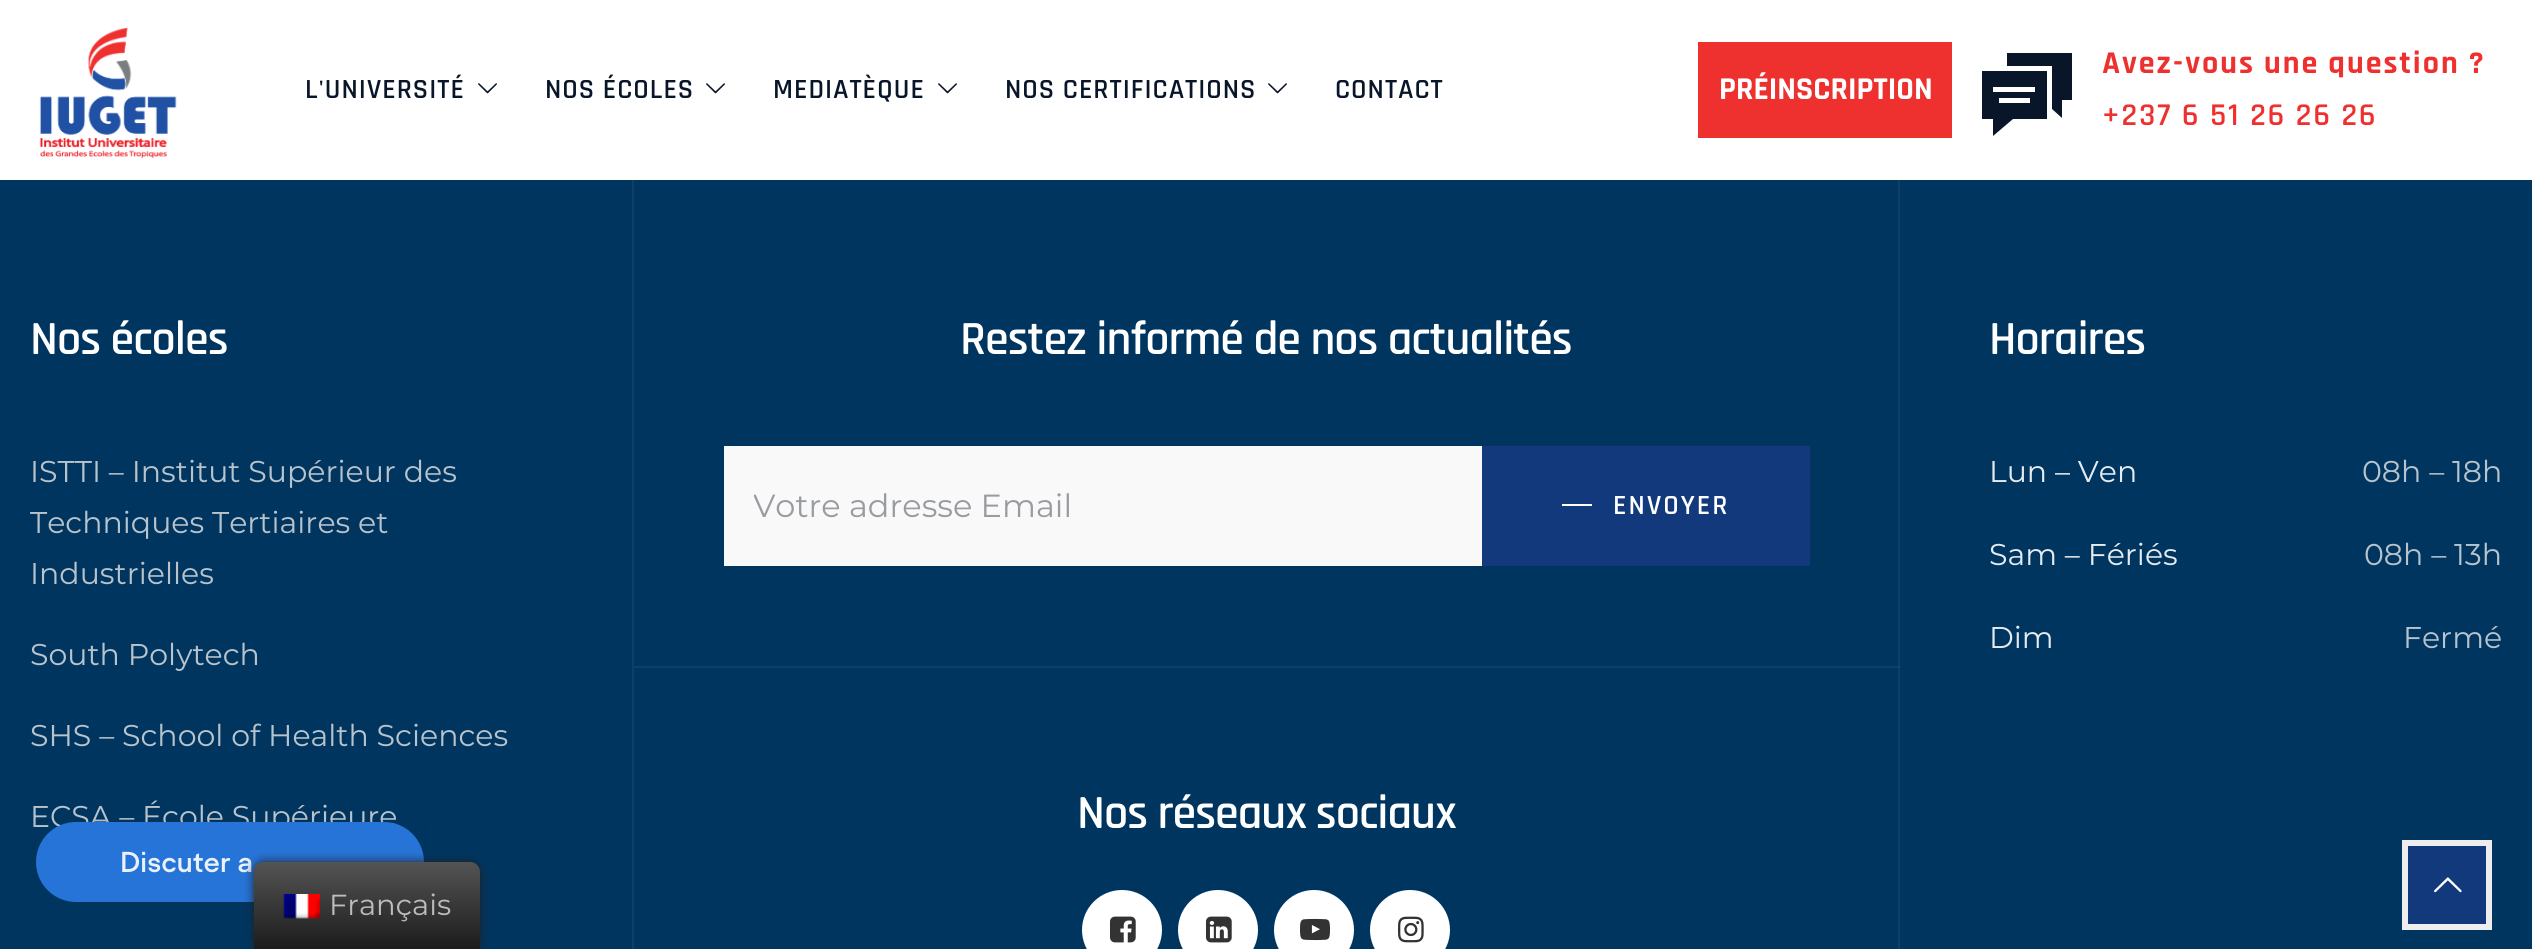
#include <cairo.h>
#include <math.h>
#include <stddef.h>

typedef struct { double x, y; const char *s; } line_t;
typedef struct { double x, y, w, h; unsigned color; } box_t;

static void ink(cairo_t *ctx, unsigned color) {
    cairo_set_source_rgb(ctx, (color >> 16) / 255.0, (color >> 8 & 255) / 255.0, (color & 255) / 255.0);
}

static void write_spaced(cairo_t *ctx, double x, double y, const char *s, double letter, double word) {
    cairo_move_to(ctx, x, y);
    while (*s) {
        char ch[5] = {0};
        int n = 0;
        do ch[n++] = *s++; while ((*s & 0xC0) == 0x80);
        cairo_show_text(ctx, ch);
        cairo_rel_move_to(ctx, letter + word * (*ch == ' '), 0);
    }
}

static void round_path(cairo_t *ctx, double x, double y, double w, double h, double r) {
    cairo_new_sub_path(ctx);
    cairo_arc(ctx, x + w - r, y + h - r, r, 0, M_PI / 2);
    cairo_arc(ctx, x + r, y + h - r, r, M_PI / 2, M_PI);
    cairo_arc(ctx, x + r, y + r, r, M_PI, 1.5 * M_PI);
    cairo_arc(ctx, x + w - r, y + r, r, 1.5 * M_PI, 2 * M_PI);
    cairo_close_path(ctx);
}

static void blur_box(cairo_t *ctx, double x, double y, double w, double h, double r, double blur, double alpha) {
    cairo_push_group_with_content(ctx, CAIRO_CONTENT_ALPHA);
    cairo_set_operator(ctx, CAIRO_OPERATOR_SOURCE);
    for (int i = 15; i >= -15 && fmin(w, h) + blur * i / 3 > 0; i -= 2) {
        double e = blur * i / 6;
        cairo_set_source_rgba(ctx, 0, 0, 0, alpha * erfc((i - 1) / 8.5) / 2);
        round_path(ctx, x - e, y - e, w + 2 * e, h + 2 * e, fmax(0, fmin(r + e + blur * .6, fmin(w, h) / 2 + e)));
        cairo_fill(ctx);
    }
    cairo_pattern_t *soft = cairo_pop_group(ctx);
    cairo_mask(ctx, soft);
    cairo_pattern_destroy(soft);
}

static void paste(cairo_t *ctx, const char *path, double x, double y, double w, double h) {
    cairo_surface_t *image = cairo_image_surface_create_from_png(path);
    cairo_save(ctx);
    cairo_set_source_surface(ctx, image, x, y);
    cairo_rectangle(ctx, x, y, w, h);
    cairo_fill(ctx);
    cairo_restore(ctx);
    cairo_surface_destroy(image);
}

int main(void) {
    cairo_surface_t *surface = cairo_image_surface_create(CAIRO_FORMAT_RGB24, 2532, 949);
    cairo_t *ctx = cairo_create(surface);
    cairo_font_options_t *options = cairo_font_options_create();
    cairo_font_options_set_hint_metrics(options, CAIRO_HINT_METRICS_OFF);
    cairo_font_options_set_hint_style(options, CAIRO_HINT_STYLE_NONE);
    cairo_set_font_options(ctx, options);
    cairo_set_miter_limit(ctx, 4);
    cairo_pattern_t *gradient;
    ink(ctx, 0x003560);
    cairo_paint(ctx);
    {
        static const box_t items[] = {
            {1898, 174, 2, 775, 0x0D3F68},
            {632, 174, 2, 775, 0x0D3F68},
            {0, 0, 2532, 180, 0xFFFFFF},
        };
        for (size_t i = 0; i < sizeof items / sizeof *items; i++) {
            ink(ctx, items[i].color);
            cairo_rectangle(ctx, items[i].x, items[i].y, items[i].w, items[i].h);
            cairo_fill(ctx);
        }
    }
    paste(ctx, "media/1.png", 39, 27, 138, 131);
    cairo_select_font_face(ctx, "Rajdhani SemiBold", CAIRO_FONT_SLANT_NORMAL, CAIRO_FONT_WEIGHT_NORMAL);
    cairo_set_font_size(ctx, 28);
    ink(ctx, 0x09162A);
    write_spaced(ctx, 305, 98, "L'UNIVERSITÉ", 1, 0);
    paste(ctx, "media/2.png", 478, 83, 19, 11);
    write_spaced(ctx, 545, 98, "NOS ÉCOLES", 1, 0);
    paste(ctx, "media/2.png", 706, 83, 19, 11);
    write_spaced(ctx, 773, 98, "MEDIATÈQUE", 1, 0);
    paste(ctx, "media/2.png", 938, 83, 19, 11);
    write_spaced(ctx, 1005, 98, "NOS CERTIFICATIONS", 1, 0);
    paste(ctx, "media/2.png", 1268, 83, 19, 11);
    write_spaced(ctx, 1335, 98, "CONTACT", 1, 0);
    ink(ctx, 0xEE302F);
    cairo_rectangle(ctx, 1698, 42, 254, 96);
    cairo_fill(ctx);
    cairo_select_font_face(ctx, "Rajdhani", CAIRO_FONT_SLANT_NORMAL, CAIRO_FONT_WEIGHT_BOLD);
    cairo_set_font_size(ctx, 32);
    ink(ctx, 0xFFFFFF);
    cairo_move_to(ctx, 1719, 99);
    cairo_show_text(ctx, "PRÉINSCRIPTION");
    ink(ctx, 0x09162A);
    cairo_new_path(ctx);
    cairo_move_to(ctx, 1982, 119);
    cairo_line_to(ctx, 1993, 119);
    cairo_line_to(ctx, 1993, 136);
    cairo_line_to(ctx, 2013, 119);
    cairo_line_to(ctx, 2047, 119);
    cairo_line_to(ctx, 2047, 71);
    cairo_line_to(ctx, 1982, 71);
    cairo_close_path(ctx);
    cairo_move_to(ctx, 2030, 103);
    cairo_line_to(ctx, 1999, 103);
    cairo_line_to(ctx, 1999, 98);
    cairo_line_to(ctx, 2030, 98);
    cairo_close_path(ctx);
    cairo_move_to(ctx, 1993, 87);
    cairo_line_to(ctx, 2035, 87);
    cairo_line_to(ctx, 2035, 92);
    cairo_line_to(ctx, 1993, 92);
    cairo_close_path(ctx);
    cairo_move_to(ctx, 2007, 53);
    cairo_line_to(ctx, 2007, 66);
    cairo_line_to(ctx, 2052, 66);
    cairo_line_to(ctx, 2052, 109);
    cairo_line_to(ctx, 2062, 118);
    cairo_line_to(ctx, 2062, 100);
    cairo_line_to(ctx, 2072, 100);
    cairo_line_to(ctx, 2072, 53);
    cairo_close_path(ctx);
    cairo_fill(ctx);
    ink(ctx, 0xEE302F);
    write_spaced(ctx, 2102, 73, "Avez-vous une question ?", 2, 0);
    cairo_select_font_face(ctx, "Rajdhani SemiBold", CAIRO_FONT_SLANT_NORMAL, CAIRO_FONT_WEIGHT_NORMAL);
    write_spaced(ctx, 2102, 125, "+237 6 51 26 26 26", 2, 0);
    cairo_set_font_size(ctx, 48);
    ink(ctx, 0xFFFFFF);
    write_spaced(ctx, 30, 354, "Nos écoles", -1, 0);
    cairo_select_font_face(ctx, "Montserrat", CAIRO_FONT_SLANT_NORMAL, CAIRO_FONT_WEIGHT_NORMAL);
    cairo_set_font_size(ctx, 30);
    ink(ctx, 0xB8C3CB);
    {
        static const line_t items[] = {
            {30, 482, "ISTTI – Institut Supérieur des"},
            {30, 533, "Techniques Tertiaires et"},
            {30, 584, "Industrielles"},
            {30, 665, "South Polytech"},
            {30, 746, "SHS – School of Health Sciences"},
            {30, 827, "ECSA – École Supérieure"},
        };
        for (size_t i = 0; i < sizeof items / sizeof *items; i++) {
            cairo_move_to(ctx, items[i].x, items[i].y);
            cairo_show_text(ctx, items[i].s);
        }
    }
    cairo_select_font_face(ctx, "Rajdhani SemiBold", CAIRO_FONT_SLANT_NORMAL, CAIRO_FONT_WEIGHT_NORMAL);
    cairo_set_font_size(ctx, 48);
    ink(ctx, 0xFFFFFF);
    write_spaced(ctx, 960, 354, "Restez informé de nos actualités", -1, 0);
    ink(ctx, 0xF9F9F9);
    cairo_rectangle(ctx, 724, 446, 758, 120);
    cairo_fill(ctx);
    cairo_save(ctx);
    cairo_rectangle(ctx, 754, 486, 1026, 38);
    cairo_clip(ctx);
    cairo_select_font_face(ctx, "Montserrat", CAIRO_FONT_SLANT_NORMAL, CAIRO_FONT_WEIGHT_NORMAL);
    cairo_set_font_size(ctx, 32);
    ink(ctx, 0x989BA1);
    cairo_move_to(ctx, 753, 517);
    cairo_show_text(ctx, "Votre adresse Email");
    cairo_restore(ctx);
    ink(ctx, 0x11397C);
    cairo_rectangle(ctx, 1482, 446, 328, 120);
    cairo_fill(ctx);
    ink(ctx, 0xFFFFFF);
    cairo_rectangle(ctx, 1562, 504, 30, 2);
    cairo_fill(ctx);
    cairo_set_font_size(ctx, 28);
    write_spaced(ctx, 1613, 514, "ENVOYER", 2, 0);
    ink(ctx, 0x0D3F68);
    cairo_rectangle(ctx, 634, 666, 1266, 2);
    cairo_fill(ctx);
    ink(ctx, 0x194970);
    cairo_rectangle(ctx, 1898, 666, 2, 2);
    cairo_fill(ctx);
    cairo_set_font_size(ctx, 48);
    ink(ctx, 0xFFFFFF);
    write_spaced(ctx, 1077, 828, "Nos réseaux sociaux", -1, 0);
    cairo_new_path(ctx);
    cairo_arc(ctx, 1122, 930, 40, 0, 2 * M_PI);
    cairo_fill(ctx);
    paste(ctx, "media/3.png", 1110, 916, 26, 27);
    cairo_arc(ctx, 1218, 930, 40, 0, 2 * M_PI);
    cairo_fill(ctx);
    paste(ctx, "media/4.png", 1206, 916, 26, 27);
    cairo_arc(ctx, 1314, 930, 40, 0, 2 * M_PI);
    cairo_fill(ctx);
    paste(ctx, "media/5.png", 1300, 918, 30, 23);
    cairo_arc(ctx, 1410, 930, 40, 0, 2 * M_PI);
    cairo_fill(ctx);
    paste(ctx, "media/6.png", 1398, 916, 26, 27);
    write_spaced(ctx, 1989, 354, "Horaires", -1, 0);
    cairo_select_font_face(ctx, "Montserrat", CAIRO_FONT_SLANT_NORMAL, CAIRO_FONT_WEIGHT_NORMAL);
    cairo_set_font_size(ctx, 30);
    ink(ctx, 0xE6EBEF);
    cairo_move_to(ctx, 1989, 482);
    cairo_show_text(ctx, "Lun – Ven");
    ink(ctx, 0xB8C3CB);
    cairo_move_to(ctx, 2362, 482);
    cairo_show_text(ctx, "08h – 18h");
    ink(ctx, 0xE6EBEF);
    cairo_move_to(ctx, 1989, 565);
    cairo_show_text(ctx, "Sam – Fériés");
    ink(ctx, 0xB8C3CB);
    cairo_move_to(ctx, 2364, 565);
    cairo_show_text(ctx, "08h – 13h");
    ink(ctx, 0xE6EBEF);
    cairo_move_to(ctx, 1989, 648);
    cairo_show_text(ctx, "Dim");
    ink(ctx, 0xB8C3CB);
    cairo_move_to(ctx, 2403, 648);
    cairo_show_text(ctx, "Fermé");
    cairo_rectangle(ctx, 35, 821, 390, 82);
    cairo_set_source_rgba(ctx, 0.086, 0.102, 0.118, 0.04);
    cairo_stroke(ctx);
    ink(ctx, 0x2774D8);
    round_path(ctx, 36, 822, 388, 80, 40);
    cairo_fill(ctx);
    cairo_select_font_face(ctx, "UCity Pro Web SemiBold", CAIRO_FONT_SLANT_NORMAL, CAIRO_FONT_WEIGHT_NORMAL);
    cairo_set_font_size(ctx, 28);
    ink(ctx, 0xE9F1FB);
    cairo_move_to(ctx, 120, 872);
    cairo_show_text(ctx, "Discuter a");
    ink(ctx, 0x11397C);
    cairo_rectangle(ctx, 2405, 843, 84, 84);
    cairo_fill_preserve(ctx);
    ink(ctx, 0xEEEEEE);
    cairo_set_line_width(ctx, 6);
    cairo_stroke(ctx);
    paste(ctx, "media/7.png", 2434, 877, 28, 16);
    ink(ctx, 0x212121);
    blur_box(ctx, 254, 862, 226, 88, 10, 5, 1);
    gradient = cairo_pattern_create_linear(367, 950, 367, 862);
    cairo_pattern_add_color_stop_rgba(gradient, 0, 0.106, 0.106, 0.106, 1);
    cairo_pattern_add_color_stop_rgba(gradient, 1, 0.329, 0.329, 0.329, 1);
    cairo_set_source(ctx, gradient);
    cairo_pattern_destroy(gradient);
    cairo_new_path(ctx);
    cairo_move_to(ctx, 264, 862);
    cairo_line_to(ctx, 470, 862);
    cairo_curve_to(ctx, 475.5, 862, 480, 866.5, 480, 872);
    cairo_line_to(ctx, 480, 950);
    cairo_line_to(ctx, 254, 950);
    cairo_line_to(ctx, 254, 872);
    cairo_curve_to(ctx, 254, 866.5, 258.5, 862, 264, 862);
    cairo_close_path(ctx);
    cairo_fill(ctx);
    paste(ctx, "media/8.png", 283, 894, 37, 25);
    cairo_select_font_face(ctx, "Montserrat", CAIRO_FONT_SLANT_NORMAL, CAIRO_FONT_WEIGHT_NORMAL);
    cairo_set_font_size(ctx, 29);
    ink(ctx, 0xBDBDBD);
    cairo_move_to(ctx, 329, 915);
    cairo_show_text(ctx, "Français");
    cairo_surface_write_to_png(surface, "image.png");
    cairo_font_options_destroy(options);
    cairo_destroy(ctx);
    cairo_surface_destroy(surface);
    return 0;
}
